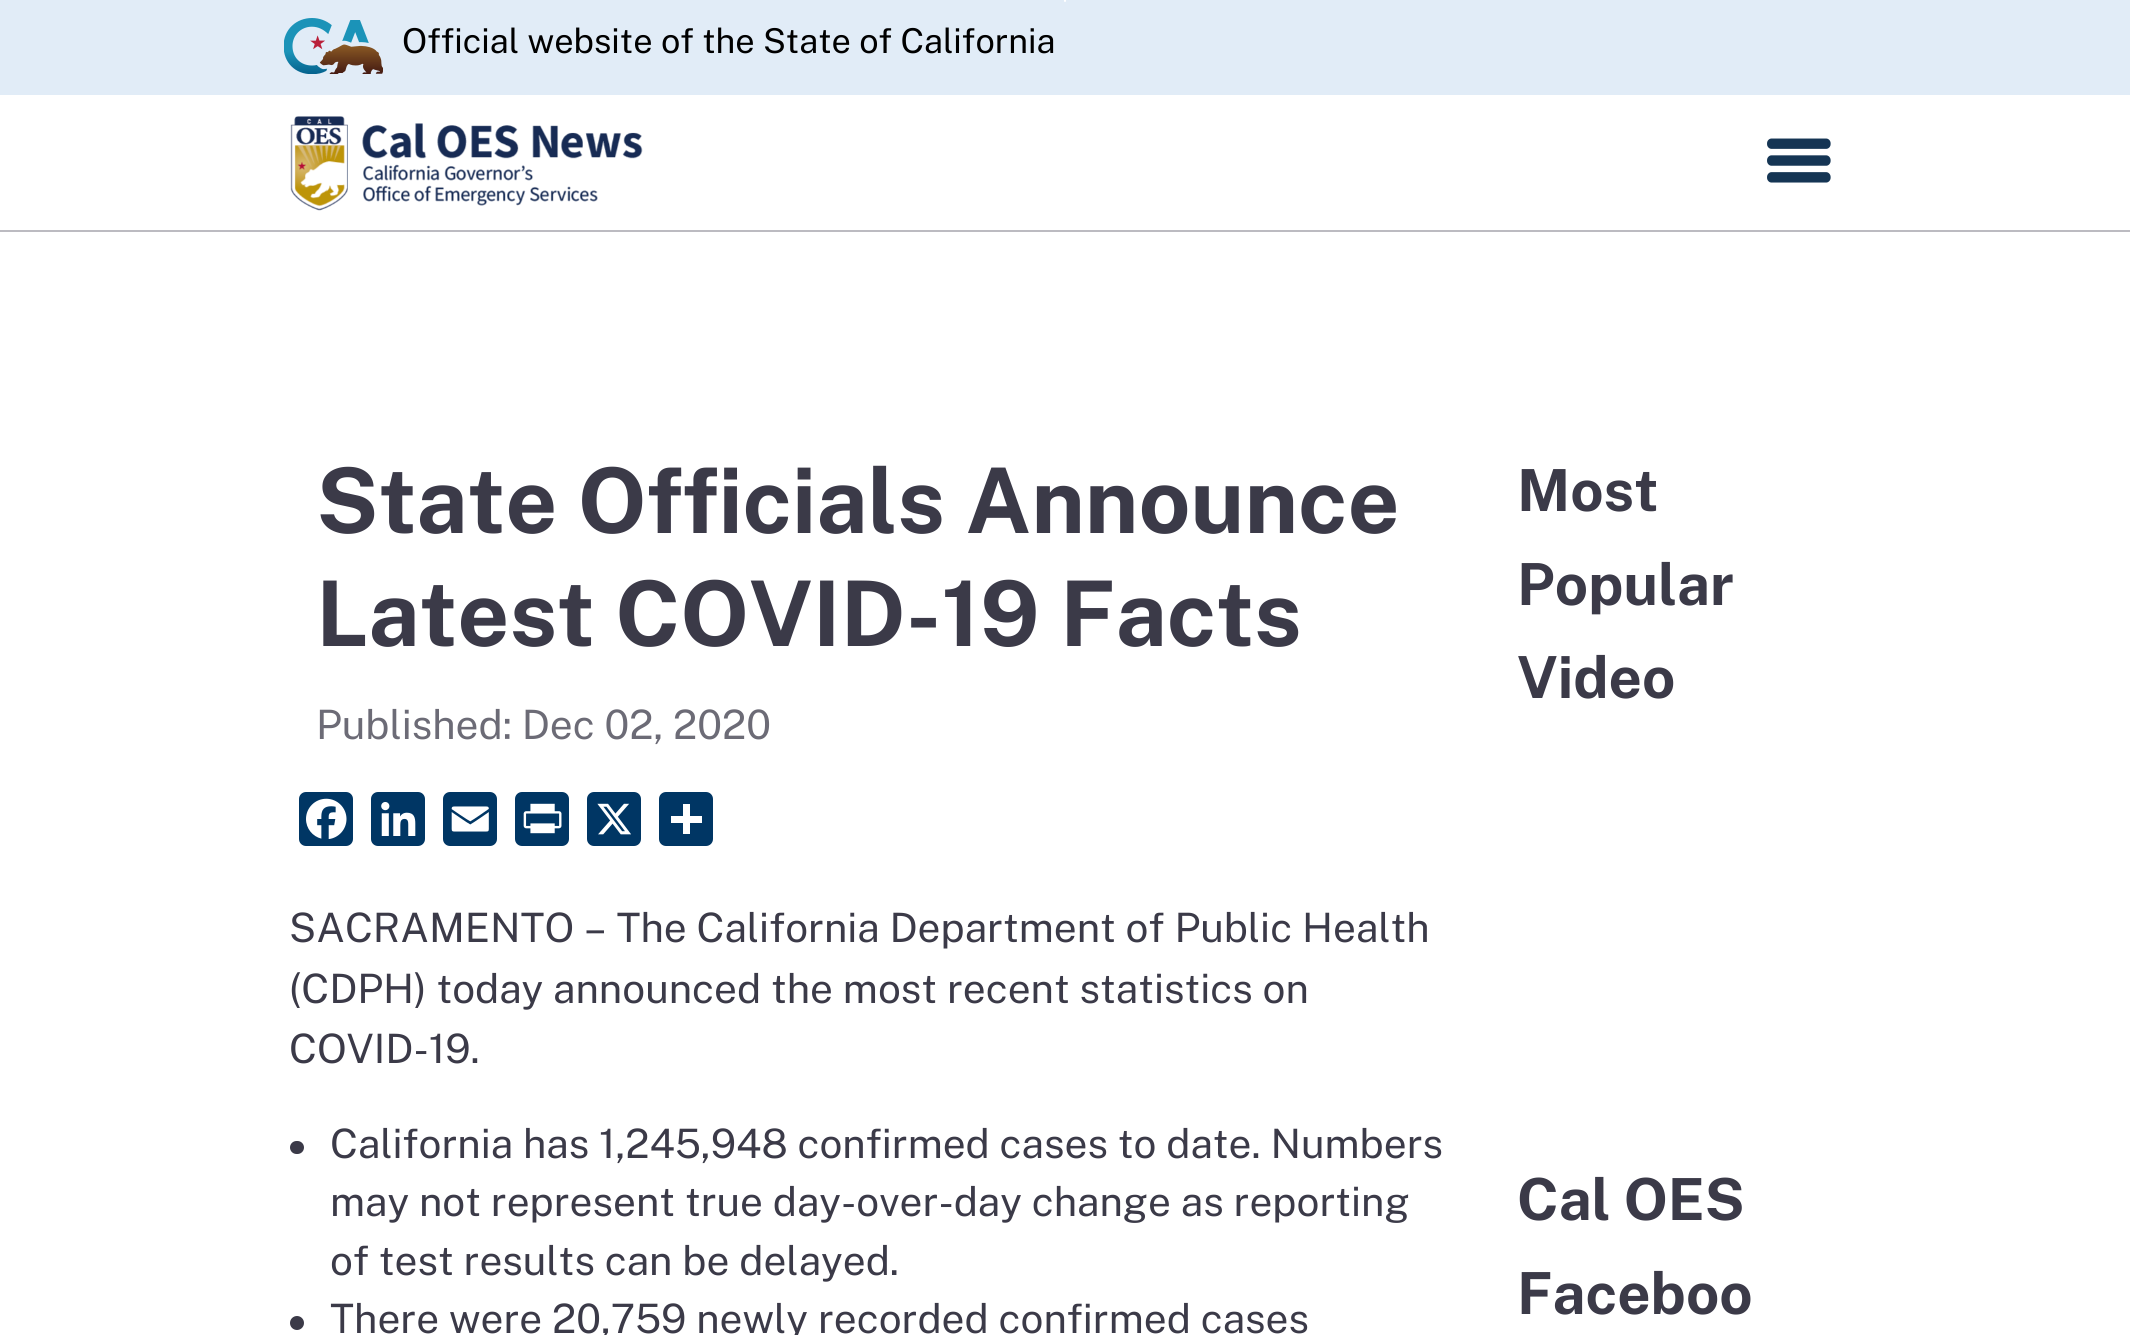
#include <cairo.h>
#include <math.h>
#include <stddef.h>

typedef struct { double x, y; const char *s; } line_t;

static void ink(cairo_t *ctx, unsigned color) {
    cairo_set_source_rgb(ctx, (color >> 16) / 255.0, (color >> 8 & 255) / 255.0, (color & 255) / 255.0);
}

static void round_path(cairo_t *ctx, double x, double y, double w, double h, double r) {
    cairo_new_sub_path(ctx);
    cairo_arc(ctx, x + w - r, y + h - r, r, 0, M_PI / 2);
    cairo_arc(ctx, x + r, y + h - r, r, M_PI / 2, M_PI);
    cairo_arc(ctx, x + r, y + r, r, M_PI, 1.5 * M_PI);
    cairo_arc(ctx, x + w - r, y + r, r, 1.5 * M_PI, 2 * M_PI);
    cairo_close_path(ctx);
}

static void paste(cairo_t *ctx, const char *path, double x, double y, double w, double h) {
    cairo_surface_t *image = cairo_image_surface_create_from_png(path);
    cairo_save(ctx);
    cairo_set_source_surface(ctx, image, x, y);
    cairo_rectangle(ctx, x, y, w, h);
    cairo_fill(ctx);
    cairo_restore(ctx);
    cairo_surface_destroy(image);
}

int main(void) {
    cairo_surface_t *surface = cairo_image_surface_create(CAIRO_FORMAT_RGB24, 2130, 1335);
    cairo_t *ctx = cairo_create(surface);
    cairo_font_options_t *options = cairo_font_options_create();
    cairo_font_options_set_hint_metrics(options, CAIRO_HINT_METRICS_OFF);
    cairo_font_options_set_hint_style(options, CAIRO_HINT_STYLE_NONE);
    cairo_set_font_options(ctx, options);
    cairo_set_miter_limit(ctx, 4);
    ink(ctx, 0xFFFFFF);
    cairo_paint(ctx);
    ink(ctx, 0xE1ECF7);
    cairo_rectangle(ctx, 0, 0, 2130, 95);
    cairo_fill(ctx);
    ink(ctx, 0xFFFFFF);
    cairo_new_path(ctx);
    cairo_move_to(ctx, 1064, 0);
    cairo_line_to(ctx, 1066, 0);
    cairo_line_to(ctx, 1066, 1);
    cairo_curve_to(ctx, 1066, 1.5, 1065.5, 2, 1065, 2);
    cairo_curve_to(ctx, 1064.5, 2, 1064, 1.5, 1064, 1);
    cairo_close_path(ctx);
    cairo_fill(ctx);
    paste(ctx, "media/1.png", 284, 18, 99, 56);
    cairo_select_font_face(ctx, "Public Sans", CAIRO_FONT_SLANT_NORMAL, CAIRO_FONT_WEIGHT_NORMAL);
    cairo_set_font_size(ctx, 34.25);
    ink(ctx, 0x000000);
    cairo_move_to(ctx, 402, 53);
    cairo_show_text(ctx, "Official website of the State of California");
    ink(ctx, 0xBCBBC1);
    cairo_rectangle(ctx, 0, 230, 2130, 2);
    cairo_fill(ctx);
    paste(ctx, "media/2.png", 290, 116, 353, 95);
    paste(ctx, "media/3.png", 1767, 138, 64, 45);
    cairo_select_font_face(ctx, "Public Sans", CAIRO_FONT_SLANT_NORMAL, CAIRO_FONT_WEIGHT_BOLD);
    cairo_set_font_size(ctx, 90.5);
    ink(ctx, 0x3B3A48);
    cairo_move_to(ctx, 316, 533);
    cairo_show_text(ctx, "State Officials Announce");
    cairo_move_to(ctx, 316, 646);
    cairo_show_text(ctx, "Latest COVID-19 Facts");
    cairo_select_font_face(ctx, "Public Sans", CAIRO_FONT_SLANT_NORMAL, CAIRO_FONT_WEIGHT_NORMAL);
    cairo_set_font_size(ctx, 40.5);
    ink(ctx, 0x6C6B76);
    cairo_move_to(ctx, 316, 739);
    cairo_show_text(ctx, "Published: Dec 02, 2020");
    ink(ctx, 0x003664);
    round_path(ctx, 299, 792, 54, 54, 7);
    cairo_fill(ctx);
    paste(ctx, "media/4.png", 306, 798, 41, 41);
    round_path(ctx, 371, 792, 54, 54, 7);
    cairo_fill(ctx);
    paste(ctx, "media/5.png", 381, 802, 35, 34);
    round_path(ctx, 443, 792, 54, 54, 7);
    cairo_fill(ctx);
    paste(ctx, "media/6.png", 451, 806, 38, 26);
    round_path(ctx, 515, 792, 54, 54, 7);
    cairo_fill(ctx);
    paste(ctx, "media/7.png", 523, 803, 39, 31);
    round_path(ctx, 587, 792, 54, 54, 7);
    cairo_fill(ctx);
    paste(ctx, "media/8.png", 597, 803, 34, 32);
    round_path(ctx, 659, 792, 54, 54, 7);
    cairo_fill(ctx);
    ink(ctx, 0xFFFFFF);
    cairo_rectangle(ctx, 683, 804, 7, 30);
    cairo_fill(ctx);
    cairo_rectangle(ctx, 671, 816, 31, 7);
    cairo_fill(ctx);
    ink(ctx, 0x3B3A48);
    {
        static const line_t items[] = {
            {289, 942, "SACRAMENTO – The California Department of Public Health"},
            {289, 1003, "(CDPH) today announced the most recent statistics on"},
            {289, 1063, "COVID-19."},
        };
        for (size_t i = 0; i < sizeof items / sizeof *items; i++) {
            cairo_move_to(ctx, items[i].x, items[i].y);
            cairo_show_text(ctx, items[i].s);
        }
    }
    round_path(ctx, 290, 1141, 14, 13, 6.5);
    cairo_fill(ctx);
    {
        static const line_t items[] = {
            {330, 1158, "California has 1,245,948 confirmed cases to date. Numbers"},
            {330, 1216, "may not represent true day-over-day change as reporting"},
            {330, 1275, "of test results can be delayed."},
        };
        for (size_t i = 0; i < sizeof items / sizeof *items; i++) {
            cairo_move_to(ctx, items[i].x, items[i].y);
            cairo_show_text(ctx, items[i].s);
        }
    }
    cairo_new_path(ctx);
    cairo_arc(ctx, 297, 1323, 7, 0, 2 * M_PI);
    cairo_fill(ctx);
    cairo_move_to(ctx, 330, 1333);
    cairo_show_text(ctx, "There were 20,759 newly recorded confirmed cases");
    cairo_select_font_face(ctx, "Public Sans", CAIRO_FONT_SLANT_NORMAL, CAIRO_FONT_WEIGHT_BOLD);
    cairo_set_font_size(ctx, 58);
    {
        static const line_t items[] = {
            {1517, 511, "Most"},
            {1517, 605, "Popular"},
            {1517, 698, "Video"},
            {1517, 1220, "Cal OES"},
            {1517, 1314, "Faceboo"},
        };
        for (size_t i = 0; i < sizeof items / sizeof *items; i++) {
            cairo_move_to(ctx, items[i].x, items[i].y);
            cairo_show_text(ctx, items[i].s);
        }
    }
    cairo_surface_write_to_png(surface, "image.png");
    cairo_font_options_destroy(options);
    cairo_destroy(ctx);
    cairo_surface_destroy(surface);
    return 0;
}
